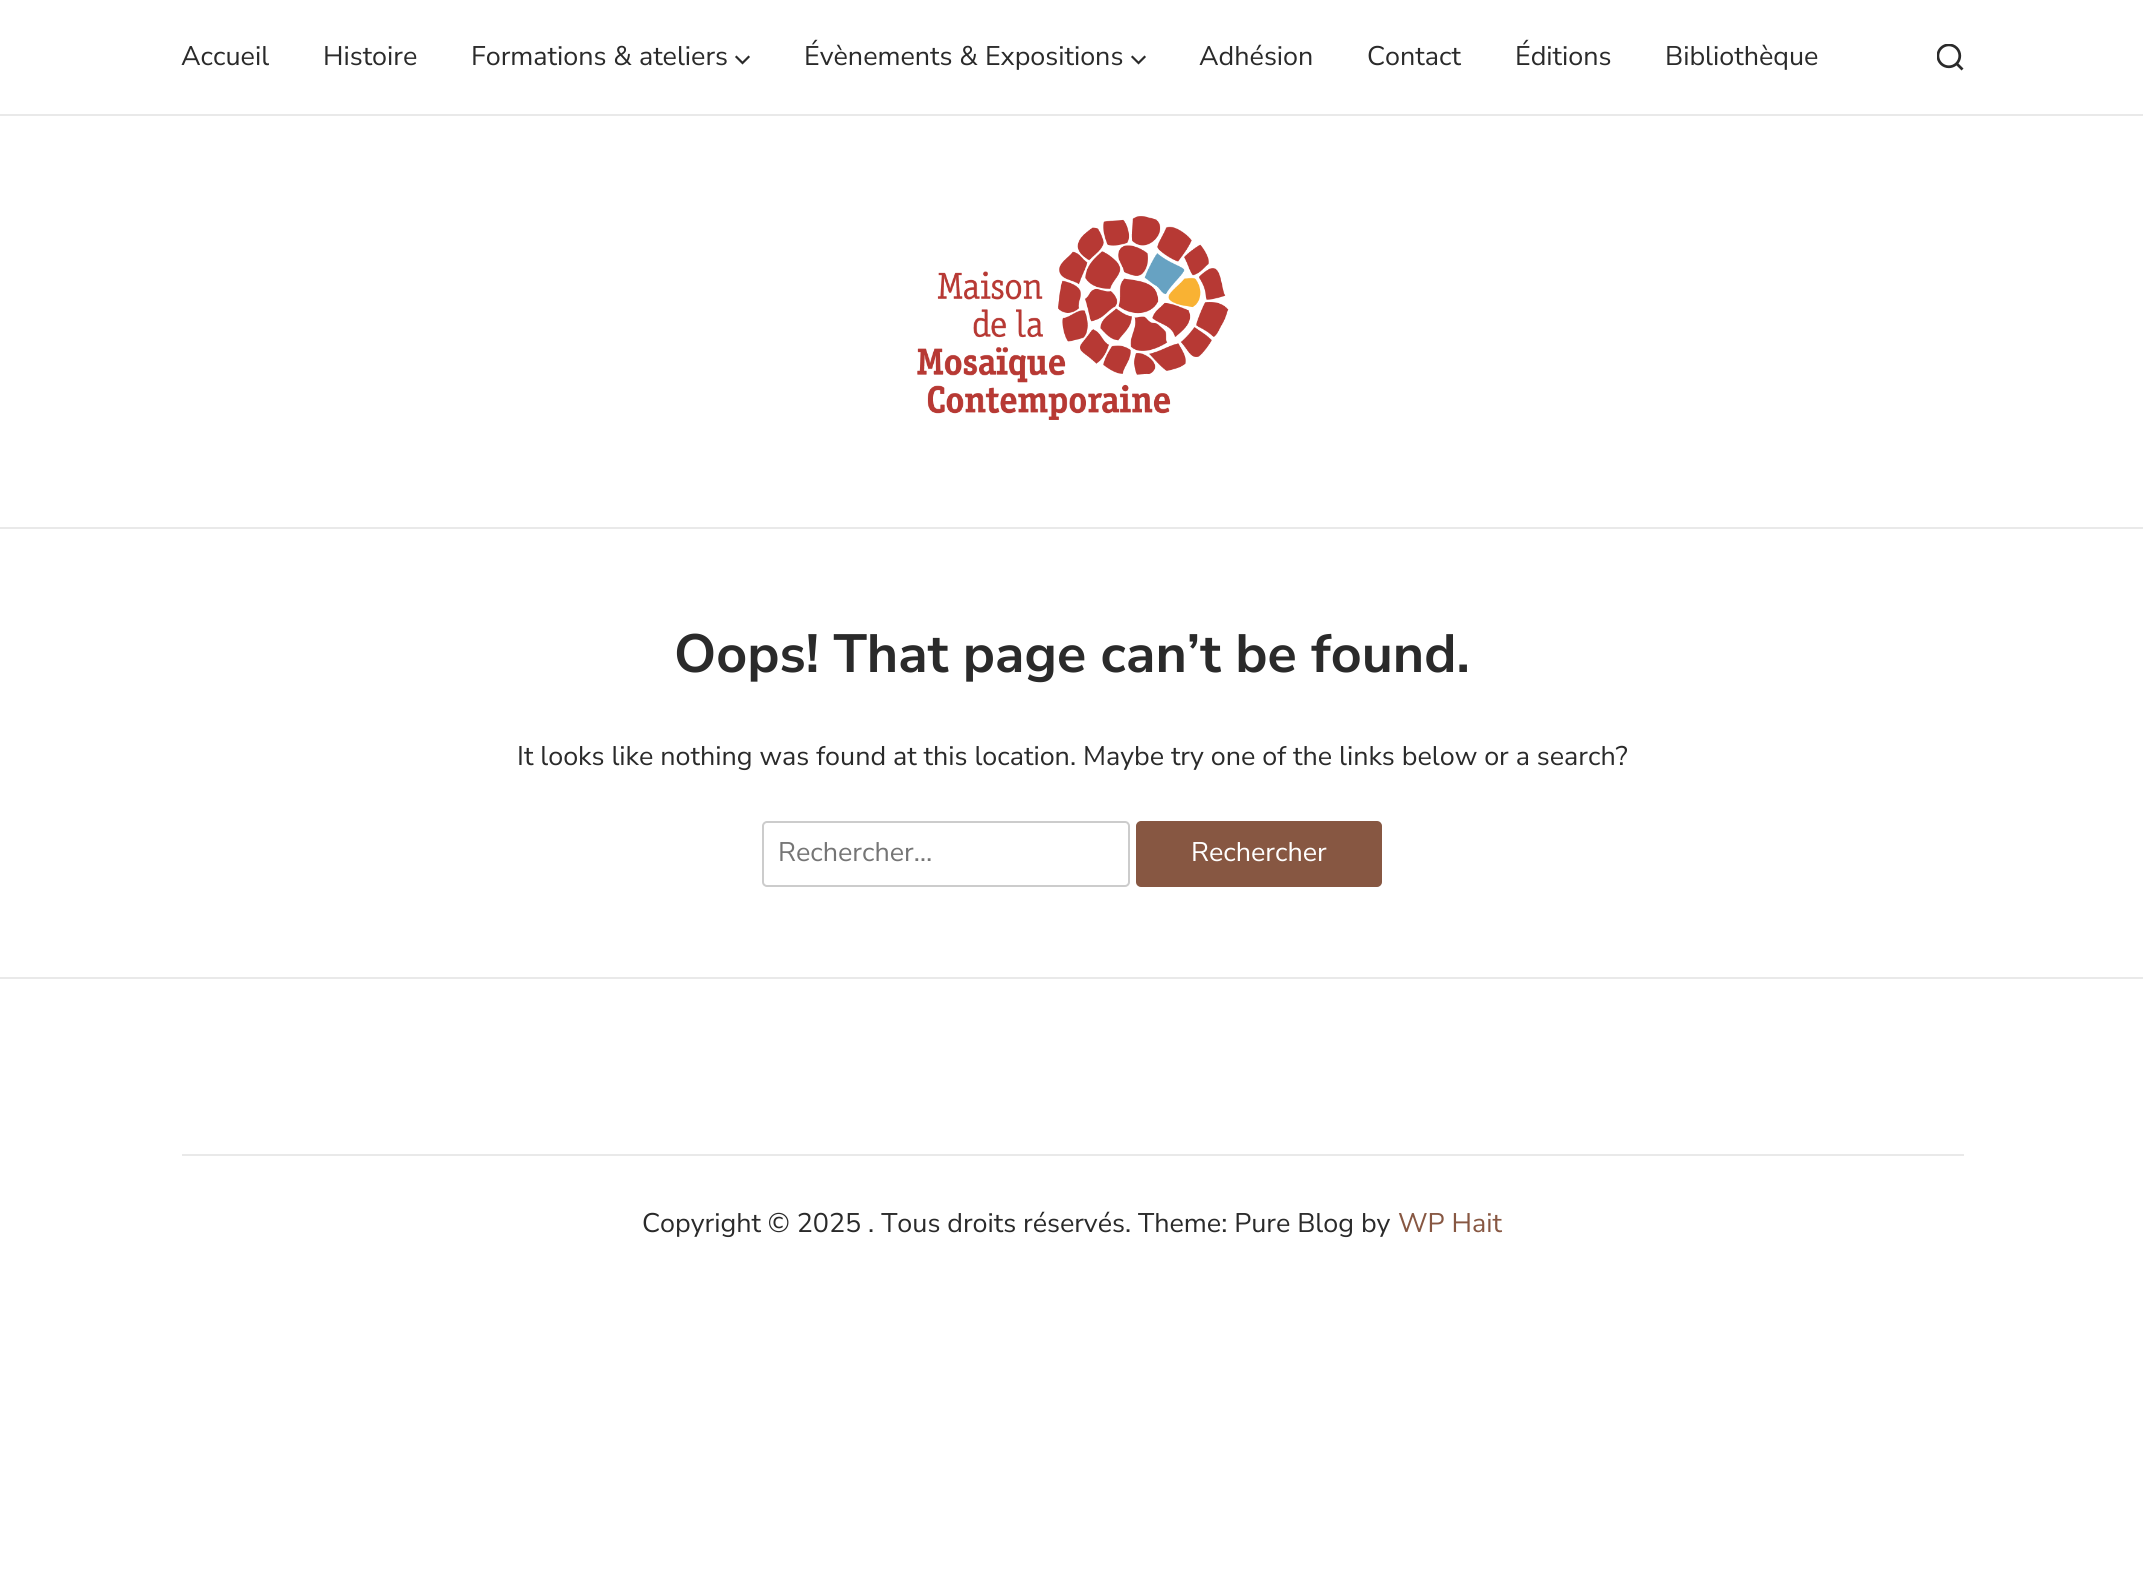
#include <cairo.h>
#include <math.h>
#include <stddef.h>

typedef struct { double x, y; const char *s; } line_t;

static void ink(cairo_t *ctx, unsigned color) {
    cairo_set_source_rgb(ctx, (color >> 16) / 255.0, (color >> 8 & 255) / 255.0, (color & 255) / 255.0);
}

static void round_path(cairo_t *ctx, double x, double y, double w, double h, double r) {
    cairo_new_sub_path(ctx);
    cairo_arc(ctx, x + w - r, y + h - r, r, 0, M_PI / 2);
    cairo_arc(ctx, x + r, y + h - r, r, M_PI / 2, M_PI);
    cairo_arc(ctx, x + r, y + r, r, M_PI, 1.5 * M_PI);
    cairo_arc(ctx, x + w - r, y + r, r, 1.5 * M_PI, 2 * M_PI);
    cairo_close_path(ctx);
}

static void paste(cairo_t *ctx, const char *path, double x, double y, double w, double h) {
    cairo_surface_t *image = cairo_image_surface_create_from_png(path);
    cairo_save(ctx);
    cairo_set_source_surface(ctx, image, x, y);
    cairo_rectangle(ctx, x, y, w, h);
    cairo_fill(ctx);
    cairo_restore(ctx);
    cairo_surface_destroy(image);
}

int main(void) {
    cairo_surface_t *surface = cairo_image_surface_create(CAIRO_FORMAT_RGB24, 2143, 1590);
    cairo_t *ctx = cairo_create(surface);
    cairo_font_options_t *options = cairo_font_options_create();
    cairo_font_options_set_hint_metrics(options, CAIRO_HINT_METRICS_OFF);
    cairo_font_options_set_hint_style(options, CAIRO_HINT_STYLE_NONE);
    cairo_set_font_options(ctx, options);
    cairo_set_miter_limit(ctx, 4);
    ink(ctx, 0xFFFFFF);
    cairo_paint(ctx);
    ink(ctx, 0xE9E9E9);
    cairo_rectangle(ctx, 0, 114, 2143, 2);
    cairo_fill(ctx);
    cairo_select_font_face(ctx, "Nunito Sans", CAIRO_FONT_SLANT_NORMAL, CAIRO_FONT_WEIGHT_NORMAL);
    cairo_set_font_size(ctx, 26.9);
    ink(ctx, 0x2A2A2A);
    {
        static const line_t items[] = {
            {181, 65, "Accueil"},
            {323, 65, "Histoire"},
            {471, 65, "Formations & ateliers"},
        };
        for (size_t i = 0; i < sizeof items / sizeof *items; i++) {
            cairo_move_to(ctx, items[i].x, items[i].y);
            cairo_show_text(ctx, items[i].s);
        }
    }
    cairo_new_path(ctx);
    cairo_move_to(ctx, 736.5, 57);
    cairo_line_to(ctx, 742.5, 63);
    cairo_line_to(ctx, 748.5, 57);
    cairo_set_line_width(ctx, 2.2);
    cairo_set_line_cap(ctx, CAIRO_LINE_CAP_SQUARE);
    cairo_stroke(ctx);
    cairo_move_to(ctx, 804, 65);
    cairo_show_text(ctx, "Évènements & Expositions");
    cairo_new_path(ctx);
    cairo_move_to(ctx, 1132.5, 57);
    cairo_line_to(ctx, 1138.5, 63);
    cairo_line_to(ctx, 1144.5, 57);
    cairo_stroke(ctx);
    {
        static const line_t items[] = {
            {1199, 65, "Adhésion"},
            {1367, 65, "Contact"},
            {1515, 65, "Éditions"},
            {1665, 65, "Bibliothèque"},
        };
        for (size_t i = 0; i < sizeof items / sizeof *items; i++) {
            cairo_move_to(ctx, items[i].x, items[i].y);
            cairo_show_text(ctx, items[i].s);
        }
    }
    paste(ctx, "media/1.png", 1937, 44, 27, 27);
    paste(ctx, "media/2.png", 917, 216, 312, 204);
    ink(ctx, 0xE9E9E9);
    cairo_rectangle(ctx, 0, 527, 2143, 2);
    cairo_fill(ctx);
    cairo_rectangle(ctx, 0, 977, 2143, 2);
    cairo_fill(ctx);
    cairo_select_font_face(ctx, "Nunito Sans", CAIRO_FONT_SLANT_NORMAL, CAIRO_FONT_WEIGHT_BOLD);
    cairo_set_font_size(ctx, 53.75);
    ink(ctx, 0x2A2A2A);
    cairo_move_to(ctx, 674, 672);
    cairo_show_text(ctx, "Oops! That page can’t be found.");
    cairo_select_font_face(ctx, "Nunito Sans", CAIRO_FONT_SLANT_NORMAL, CAIRO_FONT_WEIGHT_NORMAL);
    cairo_set_font_size(ctx, 26.9);
    cairo_move_to(ctx, 517, 765);
    cairo_show_text(ctx, "It looks like nothing was found at this location. Maybe try one of the links below or a search?");
    round_path(ctx, 763, 822, 366, 64, 4);
    ink(ctx, 0xCCCCCC);
    cairo_set_line_width(ctx, 2);
    cairo_set_line_cap(ctx, CAIRO_LINE_CAP_BUTT);
    cairo_stroke(ctx);
    ink(ctx, 0x757575);
    cairo_move_to(ctx, 778, 861);
    cairo_show_text(ctx, "Rechercher…");
    ink(ctx, 0x875742);
    round_path(ctx, 1137, 822, 244, 64, 4);
    cairo_fill_preserve(ctx);
    cairo_stroke(ctx);
    ink(ctx, 0xFFFFFF);
    cairo_move_to(ctx, 1191, 861);
    cairo_show_text(ctx, "Rechercher");
    ink(ctx, 0xE9E9E9);
    cairo_rectangle(ctx, 182, 1154, 1782, 2);
    cairo_fill(ctx);
    ink(ctx, 0x2A2A2A);
    cairo_move_to(ctx, 642, 1232);
    cairo_show_text(ctx, "Copyright © 2025 . Tous droits réservés. Theme: Pure Blog by");
    ink(ctx, 0x875742);
    cairo_move_to(ctx, 1398, 1232);
    cairo_show_text(ctx, "WP Hait");
    cairo_surface_write_to_png(surface, "image.png");
    cairo_font_options_destroy(options);
    cairo_destroy(ctx);
    cairo_surface_destroy(surface);
    return 0;
}
